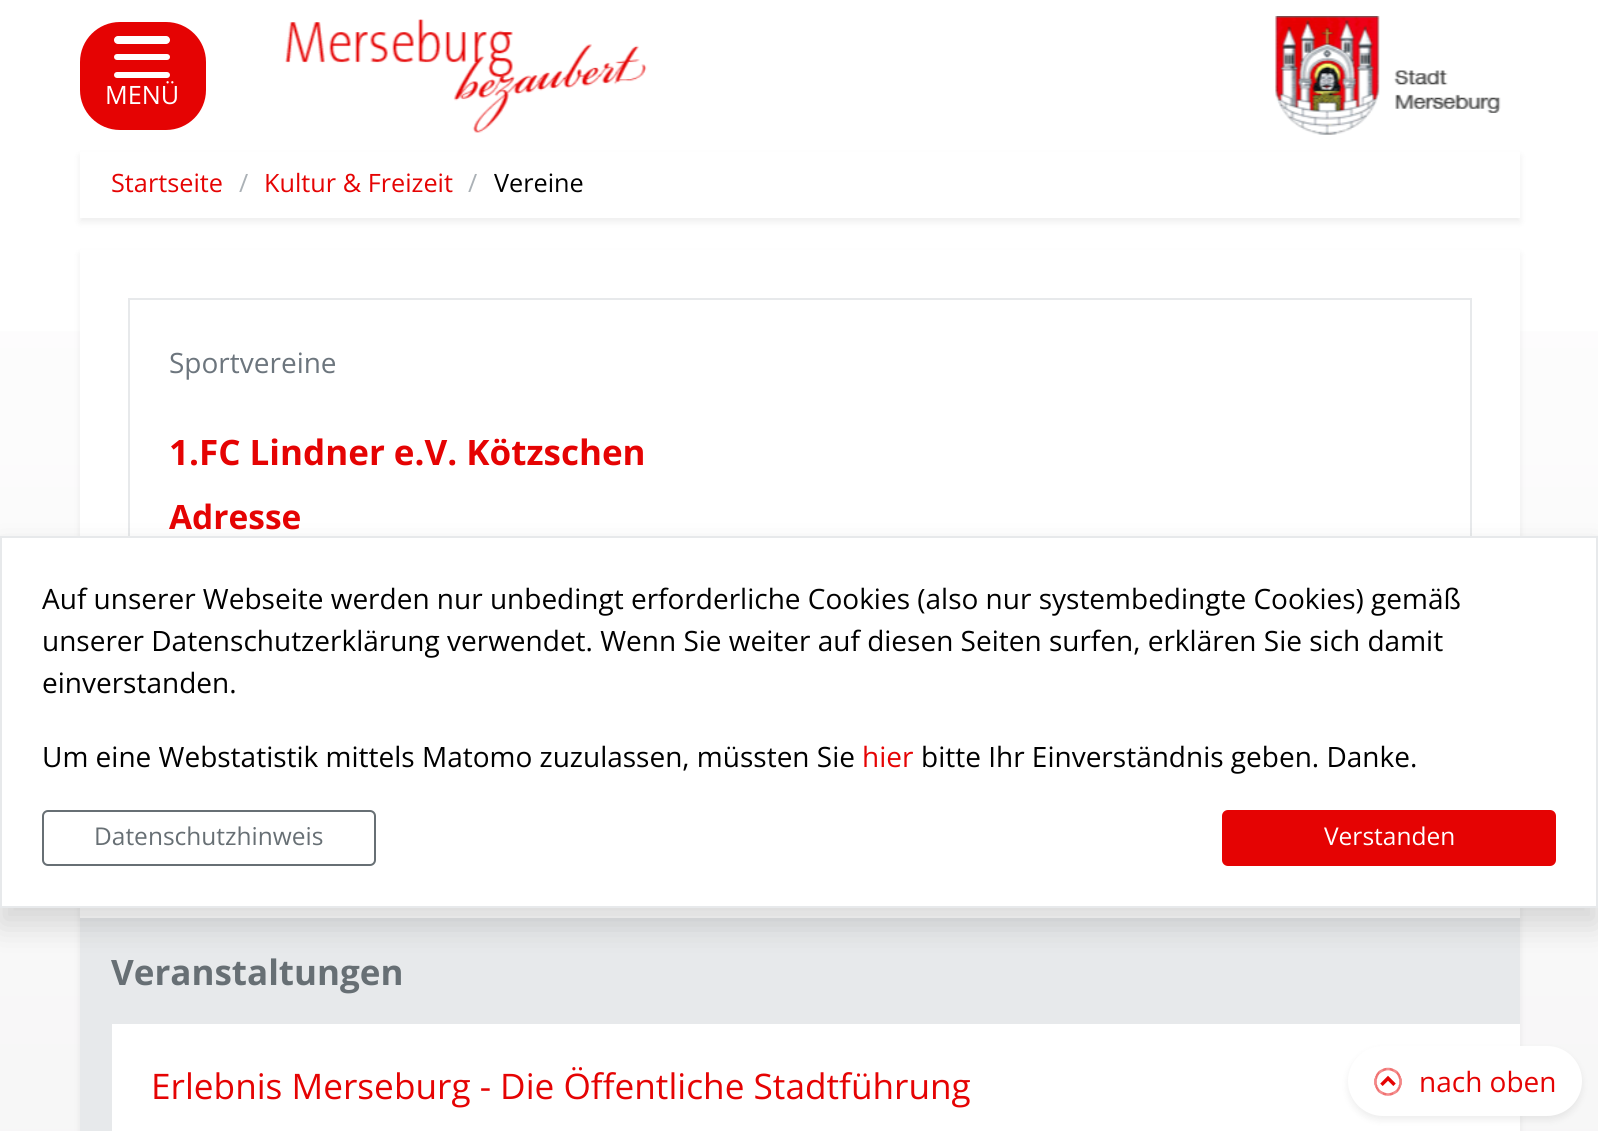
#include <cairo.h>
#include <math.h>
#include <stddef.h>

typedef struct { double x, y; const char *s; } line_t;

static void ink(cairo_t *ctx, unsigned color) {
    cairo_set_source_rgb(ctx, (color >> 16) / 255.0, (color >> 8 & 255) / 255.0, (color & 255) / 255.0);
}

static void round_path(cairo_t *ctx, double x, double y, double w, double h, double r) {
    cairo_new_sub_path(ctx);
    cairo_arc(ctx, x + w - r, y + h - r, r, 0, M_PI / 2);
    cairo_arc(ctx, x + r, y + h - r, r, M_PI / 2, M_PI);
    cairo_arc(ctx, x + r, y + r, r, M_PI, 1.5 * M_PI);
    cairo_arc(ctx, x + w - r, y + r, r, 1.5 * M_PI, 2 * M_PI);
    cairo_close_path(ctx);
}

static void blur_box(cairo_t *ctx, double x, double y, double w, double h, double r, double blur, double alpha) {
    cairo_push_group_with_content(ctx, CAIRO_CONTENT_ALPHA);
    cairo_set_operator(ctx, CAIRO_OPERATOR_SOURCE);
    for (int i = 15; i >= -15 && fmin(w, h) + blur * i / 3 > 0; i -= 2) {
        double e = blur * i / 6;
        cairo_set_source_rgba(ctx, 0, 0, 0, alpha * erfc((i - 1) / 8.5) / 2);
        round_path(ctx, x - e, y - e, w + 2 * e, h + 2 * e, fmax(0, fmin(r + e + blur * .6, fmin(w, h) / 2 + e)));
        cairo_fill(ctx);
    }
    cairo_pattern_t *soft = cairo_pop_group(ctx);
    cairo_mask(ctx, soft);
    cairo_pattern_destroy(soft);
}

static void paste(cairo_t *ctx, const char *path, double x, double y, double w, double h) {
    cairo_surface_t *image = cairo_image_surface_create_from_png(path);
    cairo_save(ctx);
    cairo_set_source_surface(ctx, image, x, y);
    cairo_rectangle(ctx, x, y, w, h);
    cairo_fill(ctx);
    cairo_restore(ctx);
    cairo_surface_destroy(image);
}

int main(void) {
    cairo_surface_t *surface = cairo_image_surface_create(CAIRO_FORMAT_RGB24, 1598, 1131);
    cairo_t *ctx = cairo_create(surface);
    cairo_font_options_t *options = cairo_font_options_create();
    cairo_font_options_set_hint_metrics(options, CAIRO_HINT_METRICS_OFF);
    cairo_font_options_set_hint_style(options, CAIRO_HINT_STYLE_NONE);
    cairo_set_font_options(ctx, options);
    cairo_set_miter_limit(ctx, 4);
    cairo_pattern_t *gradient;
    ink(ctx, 0xFFFFFF);
    cairo_paint(ctx);
    gradient = cairo_pattern_create_linear(799, 0, 799, 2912);
    cairo_pattern_add_color_stop_rgba(gradient, 0, 1, 1, 1, 1);
    cairo_pattern_add_color_stop_rgba(gradient, 1, 0.918, 0.914, 0.918, 1);
    cairo_set_source(ctx, gradient);
    cairo_pattern_destroy(gradient);
    cairo_rectangle(ctx, 0, 331, 1598, 800);
    cairo_fill(ctx);
    ink(ctx, 0xE50303);
    round_path(ctx, 80, 22, 126, 108, 40);
    cairo_fill(ctx);
    ink(ctx, 0xFFFFFF);
    round_path(ctx, 114, 36, 56, 8, 4);
    cairo_fill(ctx);
    round_path(ctx, 114, 54, 56, 6, 3);
    cairo_fill(ctx);
    round_path(ctx, 114, 72, 56, 6, 3);
    cairo_fill(ctx);
    cairo_select_font_face(ctx, "Open Sans", CAIRO_FONT_SLANT_NORMAL, CAIRO_FONT_WEIGHT_NORMAL);
    cairo_set_font_size(ctx, 25.25);
    cairo_move_to(ctx, 105, 104);
    cairo_show_text(ctx, "MENÜ");
    paste(ctx, "media/1.png", 285, 19, 362, 114);
    paste(ctx, "media/2.png", 1275, 16, 226, 119);
    ink(ctx, 0x000000);
    blur_box(ctx, 80, 156, 1440, 66, 0, 4, 0.07);
    ink(ctx, 0xFFFFFF);
    cairo_rectangle(ctx, 80, 152, 1440, 66);
    cairo_fill(ctx);
    ink(ctx, 0xE50303);
    cairo_move_to(ctx, 111, 192);
    cairo_show_text(ctx, "Startseite");
    ink(ctx, 0xABB1B6);
    cairo_move_to(ctx, 239, 192);
    cairo_show_text(ctx, "/");
    ink(ctx, 0xE50303);
    cairo_move_to(ctx, 264, 192);
    cairo_show_text(ctx, "Kultur & Freizeit");
    ink(ctx, 0xABB1B6);
    cairo_move_to(ctx, 468, 192);
    cairo_show_text(ctx, "/");
    ink(ctx, 0x000000);
    cairo_move_to(ctx, 494, 192);
    cairo_show_text(ctx, "Vereine");
    ink(ctx, 0x000000);
    blur_box(ctx, 80, 254, 1440, 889, 0, 4, 0.07);
    ink(ctx, 0xFFFFFF);
    cairo_rectangle(ctx, 80, 250, 1440, 668);
    cairo_fill(ctx);
    cairo_rectangle(ctx, 129, 299, 1342, 452);
    ink(ctx, 0xE7E9EB);
    cairo_stroke(ctx);
    cairo_set_font_size(ctx, 28);
    ink(ctx, 0x6C757D);
    cairo_move_to(ctx, 169, 373);
    cairo_show_text(ctx, "Sportvereine");
    cairo_select_font_face(ctx, "Open Sans", CAIRO_FONT_SLANT_NORMAL, CAIRO_FONT_WEIGHT_BOLD);
    cairo_set_font_size(ctx, 35);
    ink(ctx, 0xE50303);
    cairo_move_to(ctx, 169, 465);
    cairo_show_text(ctx, "1.FC Lindner e.V. Kötzschen");
    cairo_set_font_size(ctx, 33.5);
    cairo_move_to(ctx, 169, 529);
    cairo_show_text(ctx, "Adresse");
    ink(ctx, 0xE7E9EB);
    cairo_rectangle(ctx, 80, 918, 1440, 213);
    cairo_fill(ctx);
    cairo_set_font_size(ctx, 35);
    ink(ctx, 0x676F74);
    cairo_move_to(ctx, 111, 985);
    cairo_show_text(ctx, "Veranstaltungen");
    ink(ctx, 0xFFFFFF);
    cairo_rectangle(ctx, 112, 1024, 1408, 107);
    cairo_fill(ctx);
    cairo_select_font_face(ctx, "Open Sans", CAIRO_FONT_SLANT_NORMAL, CAIRO_FONT_WEIGHT_NORMAL);
    cairo_set_font_size(ctx, 35.2);
    ink(ctx, 0xE50303);
    cairo_move_to(ctx, 151, 1099);
    cairo_show_text(ctx, "Erlebnis Merseburg - Die Öffentliche Stadtführung");
    ink(ctx, 0x000000);
    blur_box(ctx, 1348, 1050, 234, 70, 35, 4, 0.07);
    ink(ctx, 0xFFFFFF);
    round_path(ctx, 1348, 1046, 234, 70, 35);
    cairo_fill(ctx);
    paste(ctx, "media/3.png", 1374, 1067, 28, 29);
    cairo_set_font_size(ctx, 28);
    ink(ctx, 0xE50303);
    cairo_move_to(ctx, 1419, 1092);
    cairo_show_text(ctx, "nach oben");
    ink(ctx, 0x000000);
    blur_box(ctx, 0, 552, 1598, 372, 0, 16, 0.15);
    ink(ctx, 0xFFFFFF);
    cairo_rectangle(ctx, 1, 537, 1596, 370);
    cairo_fill_preserve(ctx);
    ink(ctx, 0xE7E9EB);
    cairo_stroke(ctx);
    ink(ctx, 0x000000);
    {
        static const line_t items[] = {
            {42, 609, "Auf unserer Webseite werden nur unbedingt erforderliche Cookies (also nur systembedingte Cookies) gemäß"},
            {42, 651, "unserer Datenschutzerklärung verwendet. Wenn Sie weiter auf diesen Seiten surfen, erklären Sie sich damit"},
            {42, 693, "einverstanden."},
            {42, 767, "Um eine Webstatistik mittels Matomo zuzulassen, müssten Sie"},
        };
        for (size_t i = 0; i < sizeof items / sizeof *items; i++) {
            cairo_move_to(ctx, items[i].x, items[i].y);
            cairo_show_text(ctx, items[i].s);
        }
    }
    ink(ctx, 0xE50303);
    cairo_move_to(ctx, 862, 767);
    cairo_show_text(ctx, "hier");
    ink(ctx, 0x000000);
    cairo_move_to(ctx, 921, 767);
    cairo_show_text(ctx, "bitte Ihr Einverständnis geben. Danke.");
    round_path(ctx, 43, 811, 332, 54, 5);
    ink(ctx, 0x676F74);
    cairo_stroke(ctx);
    cairo_set_font_size(ctx, 24.5);
    cairo_move_to(ctx, 94, 845);
    cairo_show_text(ctx, "Datenschutzhinweis");
    ink(ctx, 0xE50303);
    round_path(ctx, 1223, 811, 332, 54, 5);
    cairo_fill_preserve(ctx);
    cairo_stroke(ctx);
    ink(ctx, 0xFFFFFF);
    cairo_move_to(ctx, 1324, 845);
    cairo_show_text(ctx, "Verstanden");
    cairo_surface_write_to_png(surface, "image.png");
    cairo_font_options_destroy(options);
    cairo_destroy(ctx);
    cairo_surface_destroy(surface);
    return 0;
}
